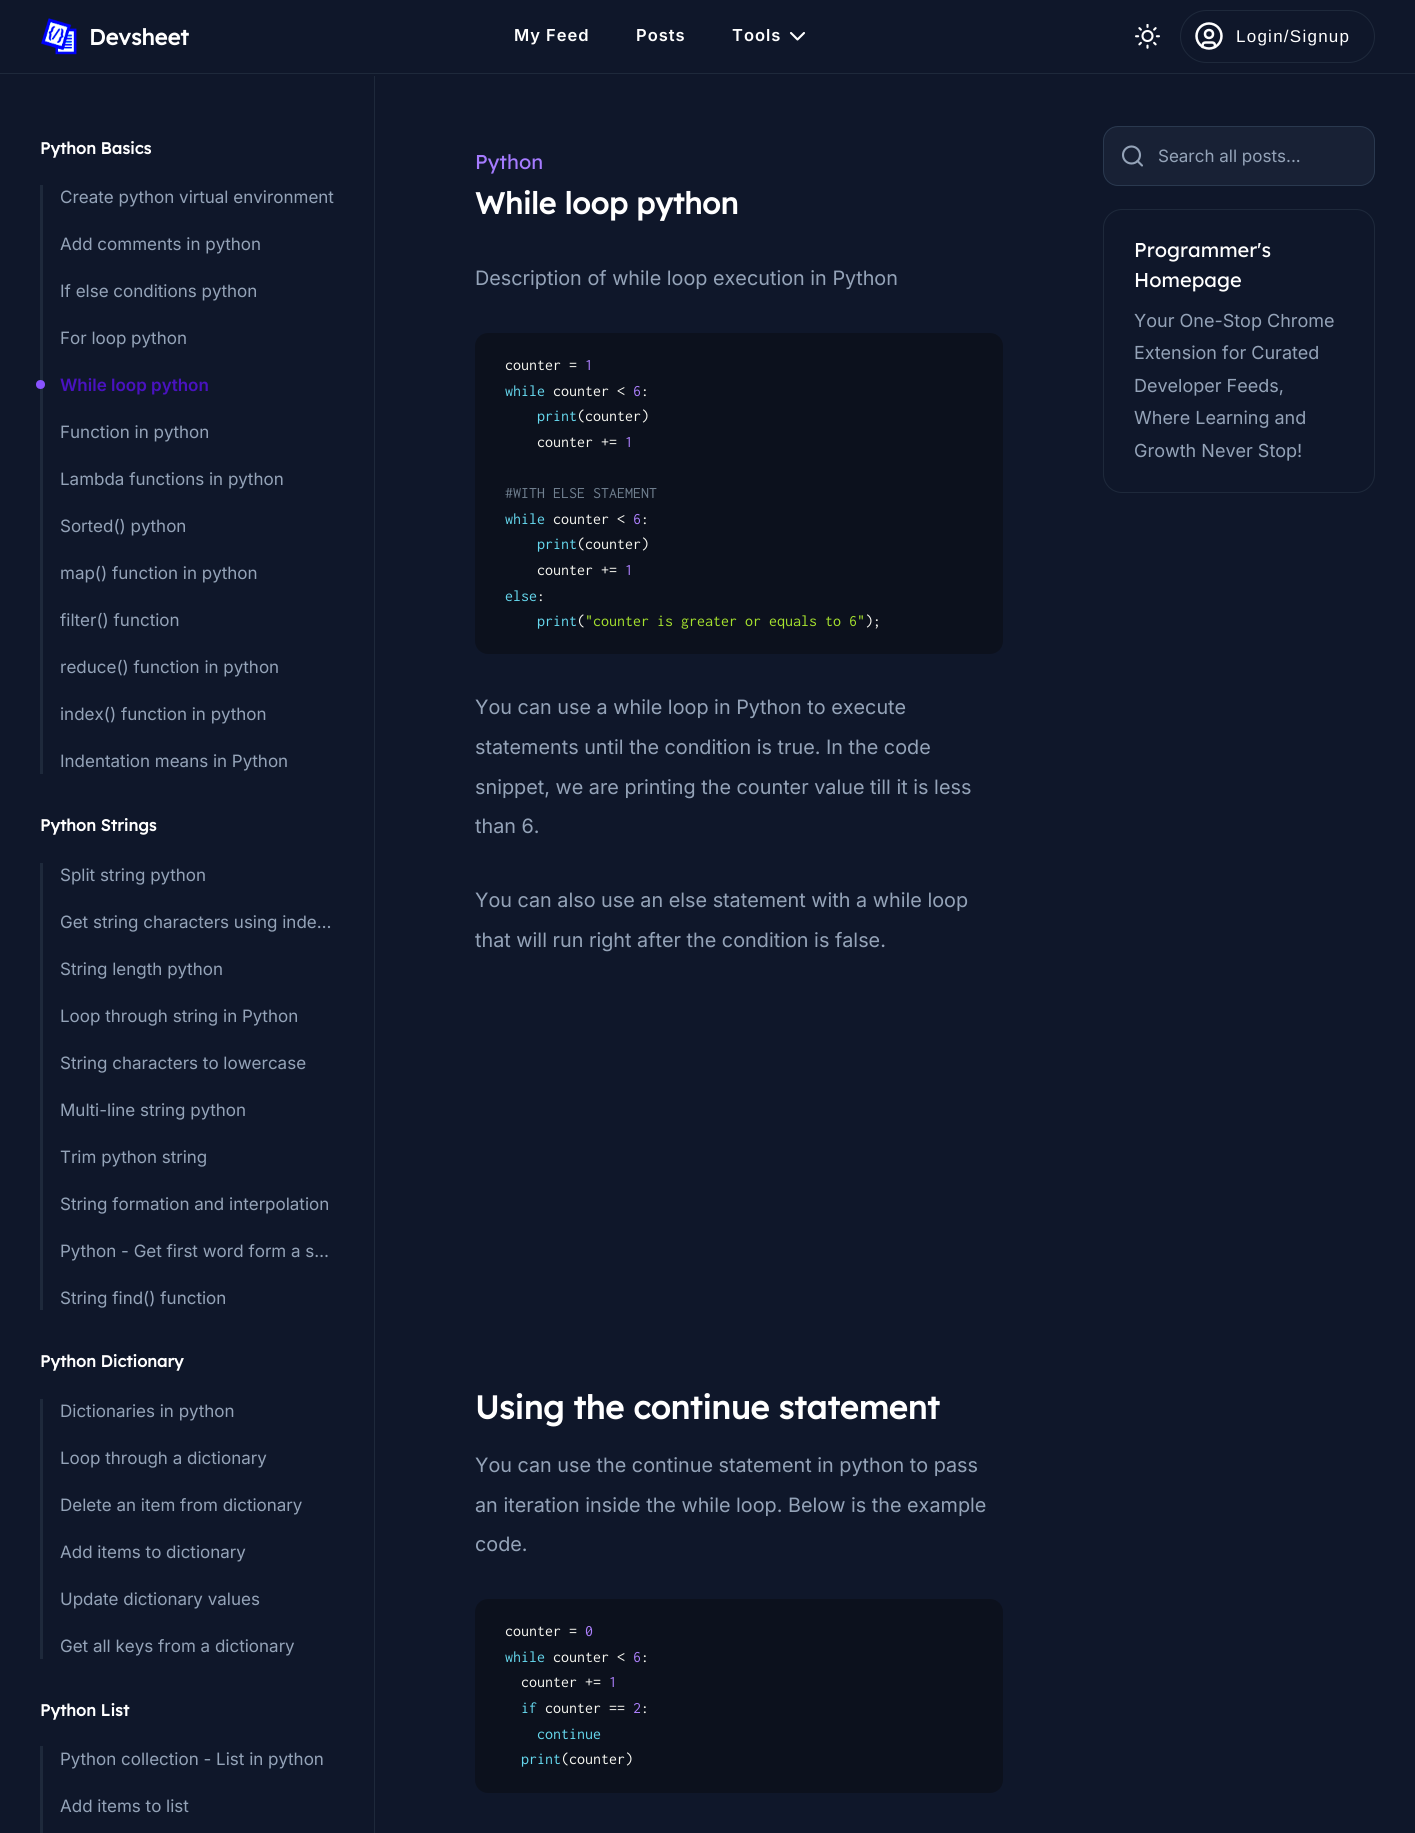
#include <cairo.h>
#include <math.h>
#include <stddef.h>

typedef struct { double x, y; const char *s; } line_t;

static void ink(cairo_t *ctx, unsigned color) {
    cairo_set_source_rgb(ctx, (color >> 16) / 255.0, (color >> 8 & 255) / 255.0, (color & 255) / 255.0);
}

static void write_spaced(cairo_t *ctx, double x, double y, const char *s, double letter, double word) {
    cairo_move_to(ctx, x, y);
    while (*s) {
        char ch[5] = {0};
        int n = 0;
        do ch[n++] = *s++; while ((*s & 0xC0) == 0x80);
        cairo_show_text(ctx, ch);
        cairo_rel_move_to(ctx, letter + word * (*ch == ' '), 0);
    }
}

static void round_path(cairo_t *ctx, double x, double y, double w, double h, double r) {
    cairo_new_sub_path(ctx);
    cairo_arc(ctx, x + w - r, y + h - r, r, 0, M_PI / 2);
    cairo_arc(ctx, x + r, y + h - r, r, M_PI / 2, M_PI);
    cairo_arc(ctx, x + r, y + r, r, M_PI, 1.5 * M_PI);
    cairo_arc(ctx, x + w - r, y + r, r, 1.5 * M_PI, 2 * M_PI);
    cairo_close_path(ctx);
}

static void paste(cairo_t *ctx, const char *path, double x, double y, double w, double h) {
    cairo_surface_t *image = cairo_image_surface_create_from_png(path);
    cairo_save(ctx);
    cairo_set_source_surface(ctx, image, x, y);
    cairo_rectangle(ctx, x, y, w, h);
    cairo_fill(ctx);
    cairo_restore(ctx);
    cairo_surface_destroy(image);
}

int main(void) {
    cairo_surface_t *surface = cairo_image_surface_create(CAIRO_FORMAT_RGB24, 1415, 1833);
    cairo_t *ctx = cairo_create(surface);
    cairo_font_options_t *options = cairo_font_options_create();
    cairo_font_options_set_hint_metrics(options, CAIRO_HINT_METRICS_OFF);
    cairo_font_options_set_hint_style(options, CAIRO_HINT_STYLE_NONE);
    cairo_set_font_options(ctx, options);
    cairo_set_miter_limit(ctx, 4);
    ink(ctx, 0x0F172A);
    cairo_paint(ctx);
    ink(ctx, 0x1E293B);
    cairo_rectangle(ctx, 0, 73, 1415, 1);
    cairo_fill(ctx);
    paste(ctx, "media/1.png", 41, 18, 36, 37);
    cairo_select_font_face(ctx, "Lexend", CAIRO_FONT_SLANT_NORMAL, CAIRO_FONT_WEIGHT_BOLD);
    cairo_set_font_size(ctx, 22);
    ink(ctx, 0xFFFFFF);
    cairo_move_to(ctx, 89, 45);
    cairo_show_text(ctx, "Devsheet");
    cairo_select_font_face(ctx, "Inter SemiBold", CAIRO_FONT_SLANT_NORMAL, CAIRO_FONT_WEIGHT_NORMAL);
    cairo_set_font_size(ctx, 16.5);
    {
        static const line_t items[] = {
            {514, 41, "My Feed"},
            {636, 41, "Posts"},
            {732, 41, "Tools"},
        };
        for (size_t i = 0; i < sizeof items / sizeof *items; i++) {
            write_spaced(ctx, items[i].x, items[i].y, items[i].s, 1, 0);
        }
    }
    cairo_new_path(ctx);
    cairo_move_to(ctx, 791, 33);
    cairo_line_to(ctx, 797.5, 39.5);
    cairo_line_to(ctx, 804, 33);
    cairo_set_line_width(ctx, 2.1);
    cairo_set_line_cap(ctx, CAIRO_LINE_CAP_ROUND);
    cairo_set_line_join(ctx, CAIRO_LINE_JOIN_ROUND);
    cairo_stroke(ctx);
    paste(ctx, "media/2.png", 1135, 24, 25, 25);
    round_path(ctx, 1180.5, 10.5, 194, 52, 26);
    ink(ctx, 0x1E293B);
    cairo_set_line_width(ctx, 1);
    cairo_set_line_cap(ctx, CAIRO_LINE_CAP_BUTT);
    cairo_set_line_join(ctx, CAIRO_LINE_JOIN_MITER);
    cairo_stroke(ctx);
    cairo_arc(ctx, 1209, 36, 12.5, 0, 2 * M_PI);
    ink(ctx, 0xFFFFFF);
    cairo_set_line_width(ctx, 2.5);
    cairo_stroke(ctx);
    cairo_arc(ctx, 1209, 34, 4, 0, 2 * M_PI);
    cairo_stroke(ctx);
    cairo_new_path(ctx);
    cairo_move_to(ctx, 1202.5, 47);
    cairo_curve_to(ctx, 1202.5, 42, 1204, 42.5, 1209, 42.5);
    cairo_curve_to(ctx, 1213.5, 42.5, 1215, 42, 1215, 47);
    cairo_set_line_cap(ctx, CAIRO_LINE_CAP_ROUND);
    cairo_set_line_join(ctx, CAIRO_LINE_JOIN_ROUND);
    cairo_stroke(ctx);
    cairo_select_font_face(ctx, "Liberation Sans", CAIRO_FONT_SLANT_NORMAL, CAIRO_FONT_WEIGHT_NORMAL);
    cairo_set_font_size(ctx, 17);
    write_spaced(ctx, 1236, 42, "Login/Signup", 1.25, 0);
    ink(ctx, 0x1E293B);
    cairo_rectangle(ctx, 374, 76, 1, 1757);
    cairo_fill(ctx);
    cairo_select_font_face(ctx, "Lexend", CAIRO_FONT_SLANT_NORMAL, CAIRO_FONT_WEIGHT_BOLD);
    cairo_set_font_size(ctx, 16.25);
    ink(ctx, 0xFFFFFF);
    write_spaced(ctx, 40, 154, "Python Basics", 0.1, 0);
    ink(ctx, 0x1E293B);
    cairo_rectangle(ctx, 40, 185, 3, 589);
    cairo_fill(ctx);
    cairo_select_font_face(ctx, "Inter", CAIRO_FONT_SLANT_NORMAL, CAIRO_FONT_WEIGHT_NORMAL);
    cairo_set_font_size(ctx, 17);
    ink(ctx, 0x94A3B8);
    {
        static const line_t items[] = {
            {60, 203, "Create python virtual environment"},
            {60, 250, "Add comments in python"},
            {60, 297, "If else conditions python"},
            {60, 344, "For loop python"},
        };
        for (size_t i = 0; i < sizeof items / sizeof *items; i++) {
            cairo_move_to(ctx, items[i].x, items[i].y);
            cairo_show_text(ctx, items[i].s);
        }
    }
    ink(ctx, 0x8953FF);
    cairo_new_path(ctx);
    cairo_arc(ctx, 40.5, 384.5, 4.5, 0, 2 * M_PI);
    cairo_fill(ctx);
    cairo_select_font_face(ctx, "Inter SemiBold", CAIRO_FONT_SLANT_NORMAL, CAIRO_FONT_WEIGHT_NORMAL);
    ink(ctx, 0x4912C0);
    cairo_move_to(ctx, 60, 391);
    cairo_show_text(ctx, "While loop python");
    cairo_select_font_face(ctx, "Inter", CAIRO_FONT_SLANT_NORMAL, CAIRO_FONT_WEIGHT_NORMAL);
    ink(ctx, 0x94A3B8);
    {
        static const line_t items[] = {
            {60, 438, "Function in python"},
            {60, 485, "Lambda functions in python"},
            {60, 532, "Sorted() python"},
            {60, 579, "map() function in python"},
            {60, 626, "filter() function"},
            {60, 673, "reduce() function in python"},
            {60, 720, "index() function in python"},
            {60, 767, "Indentation means in Python"},
        };
        for (size_t i = 0; i < sizeof items / sizeof *items; i++) {
            cairo_move_to(ctx, items[i].x, items[i].y);
            cairo_show_text(ctx, items[i].s);
        }
    }
    cairo_select_font_face(ctx, "Lexend", CAIRO_FONT_SLANT_NORMAL, CAIRO_FONT_WEIGHT_BOLD);
    cairo_set_font_size(ctx, 16.25);
    ink(ctx, 0xFFFFFF);
    write_spaced(ctx, 40, 831, "Python Strings", 0.1, 0);
    ink(ctx, 0x1E293B);
    cairo_rectangle(ctx, 40, 863, 3, 447);
    cairo_fill(ctx);
    cairo_select_font_face(ctx, "Inter", CAIRO_FONT_SLANT_NORMAL, CAIRO_FONT_WEIGHT_NORMAL);
    cairo_set_font_size(ctx, 17);
    ink(ctx, 0x94A3B8);
    {
        static const line_t items[] = {
            {60, 881, "Split string python"},
            {60, 928, "Get string characters using inde…"},
            {60, 975, "String length python"},
            {60, 1022, "Loop through string in Python"},
            {60, 1069, "String characters to lowercase"},
            {60, 1116, "Multi-line string python"},
            {60, 1163, "Trim python string"},
            {60, 1210, "String formation and interpolation"},
            {60, 1257, "Python - Get first word form a s…"},
            {60, 1304, "String find() function"},
        };
        for (size_t i = 0; i < sizeof items / sizeof *items; i++) {
            cairo_move_to(ctx, items[i].x, items[i].y);
            cairo_show_text(ctx, items[i].s);
        }
    }
    cairo_select_font_face(ctx, "Lexend", CAIRO_FONT_SLANT_NORMAL, CAIRO_FONT_WEIGHT_BOLD);
    cairo_set_font_size(ctx, 16.25);
    ink(ctx, 0xFFFFFF);
    write_spaced(ctx, 40, 1367, "Python Dictionary", 0.1, 0);
    ink(ctx, 0x1E293B);
    cairo_rectangle(ctx, 40, 1399, 3, 260);
    cairo_fill(ctx);
    cairo_select_font_face(ctx, "Inter", CAIRO_FONT_SLANT_NORMAL, CAIRO_FONT_WEIGHT_NORMAL);
    cairo_set_font_size(ctx, 17);
    ink(ctx, 0x94A3B8);
    {
        static const line_t items[] = {
            {60, 1417, "Dictionaries in python"},
            {60, 1464, "Loop through a dictionary"},
            {60, 1511, "Delete an item from dictionary"},
            {60, 1558, "Add items to dictionary"},
            {60, 1605, "Update dictionary values"},
            {60, 1652, "Get all keys from a dictionary"},
        };
        for (size_t i = 0; i < sizeof items / sizeof *items; i++) {
            cairo_move_to(ctx, items[i].x, items[i].y);
            cairo_show_text(ctx, items[i].s);
        }
    }
    cairo_select_font_face(ctx, "Lexend", CAIRO_FONT_SLANT_NORMAL, CAIRO_FONT_WEIGHT_BOLD);
    cairo_set_font_size(ctx, 16.25);
    ink(ctx, 0xFFFFFF);
    write_spaced(ctx, 40, 1716, "Python List", 0.1, 0);
    ink(ctx, 0x1E293B);
    cairo_rectangle(ctx, 40, 1746, 3, 87);
    cairo_fill(ctx);
    cairo_select_font_face(ctx, "Inter", CAIRO_FONT_SLANT_NORMAL, CAIRO_FONT_WEIGHT_NORMAL);
    cairo_set_font_size(ctx, 17);
    ink(ctx, 0x94A3B8);
    cairo_move_to(ctx, 60, 1765);
    cairo_show_text(ctx, "Python collection - List in python");
    cairo_move_to(ctx, 60, 1812);
    cairo_show_text(ctx, "Add items to list");
    cairo_select_font_face(ctx, "Lexend", CAIRO_FONT_SLANT_NORMAL, CAIRO_FONT_WEIGHT_NORMAL);
    cairo_set_font_size(ctx, 20);
    ink(ctx, 0xA57BFF);
    cairo_move_to(ctx, 475, 169);
    cairo_show_text(ctx, "Python");
    cairo_select_font_face(ctx, "Lexend", CAIRO_FONT_SLANT_NORMAL, CAIRO_FONT_WEIGHT_BOLD);
    cairo_set_font_size(ctx, 30);
    ink(ctx, 0xFFFFFF);
    cairo_move_to(ctx, 475, 214);
    cairo_show_text(ctx, "While loop python");
    cairo_select_font_face(ctx, "Inter", CAIRO_FONT_SLANT_NORMAL, CAIRO_FONT_WEIGHT_NORMAL);
    cairo_set_font_size(ctx, 19.8);
    ink(ctx, 0x94A3B8);
    cairo_move_to(ctx, 475, 285);
    cairo_show_text(ctx, "Description of while loop execution in Python");
    ink(ctx, 0x0C111D);
    round_path(ctx, 475, 333, 528, 321, 13);
    cairo_fill(ctx);
    cairo_select_font_face(ctx, "Inconsolata", CAIRO_FONT_SLANT_NORMAL, CAIRO_FONT_WEIGHT_NORMAL);
    cairo_set_font_size(ctx, 16);
    ink(ctx, 0xF8F8F2);
    cairo_move_to(ctx, 505, 370);
    cairo_show_text(ctx, "counter =");
    ink(ctx, 0xAE81FF);
    cairo_move_to(ctx, 585, 370);
    cairo_show_text(ctx, "1");
    ink(ctx, 0x66D9EF);
    cairo_move_to(ctx, 505, 396);
    cairo_show_text(ctx, "while");
    ink(ctx, 0xF8F8F2);
    cairo_move_to(ctx, 553, 396);
    cairo_show_text(ctx, "counter <");
    ink(ctx, 0xAE81FF);
    cairo_move_to(ctx, 633, 396);
    cairo_show_text(ctx, "6");
    ink(ctx, 0xF8F8F2);
    cairo_move_to(ctx, 641, 396);
    cairo_show_text(ctx, ":");
    ink(ctx, 0x66D9EF);
    cairo_move_to(ctx, 537, 421);
    cairo_show_text(ctx, "print");
    ink(ctx, 0xF8F8F2);
    cairo_move_to(ctx, 577, 421);
    cairo_show_text(ctx, "(counter)");
    cairo_move_to(ctx, 537, 447);
    cairo_show_text(ctx, "counter +=");
    ink(ctx, 0xAE81FF);
    cairo_move_to(ctx, 625, 447);
    cairo_show_text(ctx, "1");
    ink(ctx, 0x708090);
    cairo_move_to(ctx, 505, 498);
    cairo_show_text(ctx, "#WITH ELSE STAEMENT");
    ink(ctx, 0x66D9EF);
    cairo_move_to(ctx, 505, 524);
    cairo_show_text(ctx, "while");
    ink(ctx, 0xF8F8F2);
    cairo_move_to(ctx, 553, 524);
    cairo_show_text(ctx, "counter <");
    ink(ctx, 0xAE81FF);
    cairo_move_to(ctx, 633, 524);
    cairo_show_text(ctx, "6");
    ink(ctx, 0xF8F8F2);
    cairo_move_to(ctx, 641, 524);
    cairo_show_text(ctx, ":");
    ink(ctx, 0x66D9EF);
    cairo_move_to(ctx, 537, 549);
    cairo_show_text(ctx, "print");
    ink(ctx, 0xF8F8F2);
    cairo_move_to(ctx, 577, 549);
    cairo_show_text(ctx, "(counter)");
    cairo_move_to(ctx, 537, 575);
    cairo_show_text(ctx, "counter +=");
    ink(ctx, 0xAE81FF);
    cairo_move_to(ctx, 625, 575);
    cairo_show_text(ctx, "1");
    ink(ctx, 0x66D9EF);
    cairo_move_to(ctx, 505, 601);
    cairo_show_text(ctx, "else");
    ink(ctx, 0xF8F8F2);
    cairo_move_to(ctx, 537, 601);
    cairo_show_text(ctx, ":");
    ink(ctx, 0x66D9EF);
    cairo_move_to(ctx, 537, 626);
    cairo_show_text(ctx, "print");
    ink(ctx, 0xF8F8F2);
    cairo_move_to(ctx, 577, 626);
    cairo_show_text(ctx, "(");
    ink(ctx, 0xA6E22E);
    cairo_move_to(ctx, 585, 626);
    cairo_show_text(ctx, "\"counter is greater or equals to 6\"");
    ink(ctx, 0xF8F8F2);
    cairo_move_to(ctx, 865, 626);
    cairo_show_text(ctx, ");");
    cairo_select_font_face(ctx, "Inter", CAIRO_FONT_SLANT_NORMAL, CAIRO_FONT_WEIGHT_NORMAL);
    cairo_set_font_size(ctx, 19.8);
    ink(ctx, 0x94A3B8);
    {
        static const line_t items[] = {
            {475, 714, "You can use a while loop in Python to execute"},
            {475, 754, "statements until the condition is true. In the code"},
            {475, 794, "snippet, we are printing the counter value till it is less"},
            {475, 833, "than 6."},
            {475, 907, "You can also use an else statement with a while loop"},
            {475, 947, "that will run right after the condition is false."},
        };
        for (size_t i = 0; i < sizeof items / sizeof *items; i++) {
            cairo_move_to(ctx, items[i].x, items[i].y);
            cairo_show_text(ctx, items[i].s);
        }
    }
    cairo_select_font_face(ctx, "Lexend", CAIRO_FONT_SLANT_NORMAL, CAIRO_FONT_WEIGHT_BOLD);
    cairo_set_font_size(ctx, 32.5);
    ink(ctx, 0xFFFFFF);
    cairo_move_to(ctx, 475, 1419);
    cairo_show_text(ctx, "Using the continue statement");
    cairo_select_font_face(ctx, "Inter", CAIRO_FONT_SLANT_NORMAL, CAIRO_FONT_WEIGHT_NORMAL);
    cairo_set_font_size(ctx, 19.8);
    ink(ctx, 0x94A3B8);
    {
        static const line_t items[] = {
            {475, 1472, "You can use the continue statement in python to pass"},
            {475, 1512, "an iteration inside the while loop. Below is the example"},
            {475, 1551, "code."},
        };
        for (size_t i = 0; i < sizeof items / sizeof *items; i++) {
            cairo_move_to(ctx, items[i].x, items[i].y);
            cairo_show_text(ctx, items[i].s);
        }
    }
    ink(ctx, 0x0C111D);
    round_path(ctx, 475, 1599, 528, 194, 13);
    cairo_fill(ctx);
    cairo_select_font_face(ctx, "Inconsolata", CAIRO_FONT_SLANT_NORMAL, CAIRO_FONT_WEIGHT_NORMAL);
    cairo_set_font_size(ctx, 16);
    ink(ctx, 0xF8F8F2);
    cairo_move_to(ctx, 505, 1636);
    cairo_show_text(ctx, "counter =");
    ink(ctx, 0xAE81FF);
    cairo_move_to(ctx, 585, 1636);
    cairo_show_text(ctx, "0");
    ink(ctx, 0x66D9EF);
    cairo_move_to(ctx, 505, 1662);
    cairo_show_text(ctx, "while");
    ink(ctx, 0xF8F8F2);
    cairo_move_to(ctx, 553, 1662);
    cairo_show_text(ctx, "counter <");
    ink(ctx, 0xAE81FF);
    cairo_move_to(ctx, 633, 1662);
    cairo_show_text(ctx, "6");
    ink(ctx, 0xF8F8F2);
    cairo_move_to(ctx, 641, 1662);
    cairo_show_text(ctx, ":");
    cairo_move_to(ctx, 521, 1687);
    cairo_show_text(ctx, "counter +=");
    ink(ctx, 0xAE81FF);
    cairo_move_to(ctx, 609, 1687);
    cairo_show_text(ctx, "1");
    ink(ctx, 0x66D9EF);
    cairo_move_to(ctx, 521, 1713);
    cairo_show_text(ctx, "if");
    ink(ctx, 0xF8F8F2);
    cairo_move_to(ctx, 545, 1713);
    cairo_show_text(ctx, "counter ==");
    ink(ctx, 0xAE81FF);
    cairo_move_to(ctx, 633, 1713);
    cairo_show_text(ctx, "2");
    ink(ctx, 0xF8F8F2);
    cairo_move_to(ctx, 641, 1713);
    cairo_show_text(ctx, ":");
    ink(ctx, 0x66D9EF);
    cairo_move_to(ctx, 537, 1739);
    cairo_show_text(ctx, "continue");
    cairo_move_to(ctx, 521, 1764);
    cairo_show_text(ctx, "print");
    ink(ctx, 0xF8F8F2);
    cairo_move_to(ctx, 561, 1764);
    cairo_show_text(ctx, "(counter)");
    ink(ctx, 0x182135);
    round_path(ctx, 1103.5, 126.5, 271, 59, 14.5);
    cairo_fill_preserve(ctx);
    ink(ctx, 0x2A394F);
    cairo_set_line_width(ctx, 1);
    cairo_set_line_cap(ctx, CAIRO_LINE_CAP_BUTT);
    cairo_set_line_join(ctx, CAIRO_LINE_JOIN_MITER);
    cairo_stroke(ctx);
    cairo_arc(ctx, 1131.5, 155, 8.5, 0, 2 * M_PI);
    ink(ctx, 0x94A3B8);
    cairo_set_line_width(ctx, 2.1);
    cairo_stroke(ctx);
    cairo_new_path(ctx);
    cairo_move_to(ctx, 1142, 165.5);
    cairo_line_to(ctx, 1137.5, 161);
    cairo_set_line_cap(ctx, CAIRO_LINE_CAP_ROUND);
    cairo_set_line_join(ctx, CAIRO_LINE_JOIN_ROUND);
    cairo_stroke(ctx);
    cairo_select_font_face(ctx, "Inter", CAIRO_FONT_SLANT_NORMAL, CAIRO_FONT_WEIGHT_NORMAL);
    cairo_set_font_size(ctx, 17);
    cairo_move_to(ctx, 1158, 162);
    cairo_show_text(ctx, "Search all posts...");
    round_path(ctx, 1103.5, 209.5, 271, 283, 18.5);
    ink(ctx, 0x1E293B);
    cairo_set_line_width(ctx, 1);
    cairo_set_line_cap(ctx, CAIRO_LINE_CAP_BUTT);
    cairo_set_line_join(ctx, CAIRO_LINE_JOIN_MITER);
    cairo_stroke(ctx);
    cairo_select_font_face(ctx, "Lexend", CAIRO_FONT_SLANT_NORMAL, CAIRO_FONT_WEIGHT_NORMAL);
    cairo_set_font_size(ctx, 20);
    ink(ctx, 0xFFFFFF);
    cairo_move_to(ctx, 1134, 257);
    cairo_show_text(ctx, "Programmer's");
    cairo_move_to(ctx, 1134, 287);
    cairo_show_text(ctx, "Homepage");
    cairo_select_font_face(ctx, "Inter", CAIRO_FONT_SLANT_NORMAL, CAIRO_FONT_WEIGHT_NORMAL);
    cairo_set_font_size(ctx, 18);
    ink(ctx, 0x94A3B8);
    {
        static const line_t items[] = {
            {1134, 327, "Your One-Stop Chrome"},
            {1134, 359, "Extension for Curated"},
            {1134, 392, "Developer Feeds,"},
            {1134, 424, "Where Learning and"},
            {1134, 457, "Growth Never Stop!"},
        };
        for (size_t i = 0; i < sizeof items / sizeof *items; i++) {
            cairo_move_to(ctx, items[i].x, items[i].y);
            cairo_show_text(ctx, items[i].s);
        }
    }
    cairo_surface_write_to_png(surface, "image.png");
    cairo_font_options_destroy(options);
    cairo_destroy(ctx);
    cairo_surface_destroy(surface);
    return 0;
}
